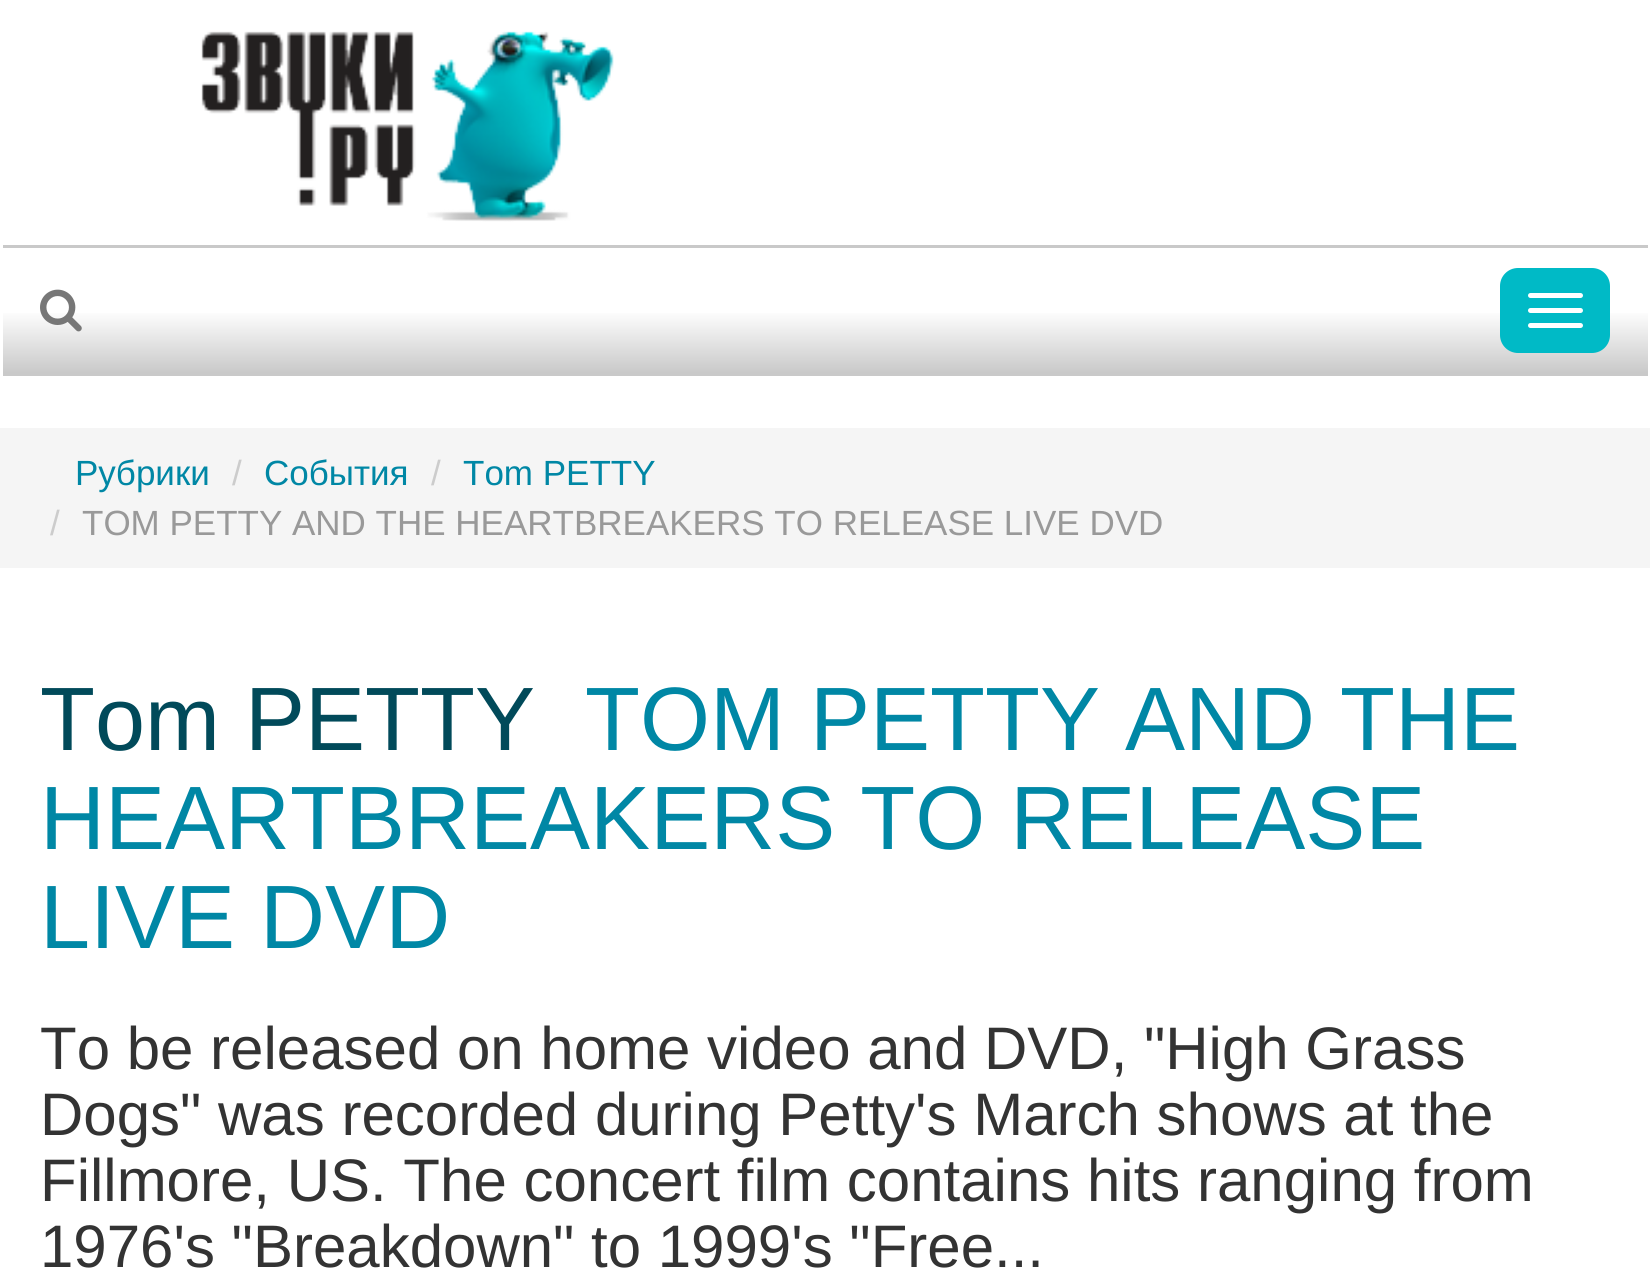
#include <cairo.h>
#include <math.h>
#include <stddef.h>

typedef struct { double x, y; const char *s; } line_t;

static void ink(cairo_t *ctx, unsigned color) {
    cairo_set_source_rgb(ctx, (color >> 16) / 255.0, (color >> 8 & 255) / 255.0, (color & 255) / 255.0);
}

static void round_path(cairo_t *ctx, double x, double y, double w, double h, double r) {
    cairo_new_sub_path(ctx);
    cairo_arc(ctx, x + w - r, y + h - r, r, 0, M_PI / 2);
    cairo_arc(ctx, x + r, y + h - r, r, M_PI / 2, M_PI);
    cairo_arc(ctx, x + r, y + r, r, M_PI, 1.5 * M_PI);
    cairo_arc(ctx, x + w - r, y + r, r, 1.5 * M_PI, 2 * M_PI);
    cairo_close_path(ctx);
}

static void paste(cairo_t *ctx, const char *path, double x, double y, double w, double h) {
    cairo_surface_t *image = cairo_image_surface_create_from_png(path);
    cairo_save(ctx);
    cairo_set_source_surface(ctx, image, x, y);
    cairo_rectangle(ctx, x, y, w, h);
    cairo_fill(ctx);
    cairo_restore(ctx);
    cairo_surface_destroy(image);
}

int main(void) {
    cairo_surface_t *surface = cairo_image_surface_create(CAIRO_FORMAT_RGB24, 1650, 1273);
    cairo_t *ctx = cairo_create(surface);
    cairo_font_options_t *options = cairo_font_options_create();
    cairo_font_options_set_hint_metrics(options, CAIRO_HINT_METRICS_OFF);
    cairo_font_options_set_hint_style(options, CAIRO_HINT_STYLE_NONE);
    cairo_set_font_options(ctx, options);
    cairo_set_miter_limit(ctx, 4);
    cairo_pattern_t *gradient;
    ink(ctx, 0xFFFFFF);
    cairo_paint(ctx);
    paste(ctx, "media/1.png", 201, 31, 413, 191);
    gradient = cairo_pattern_create_linear(825, 247, 825, 373);
    cairo_pattern_add_color_stop_rgba(gradient, 0, 1, 1, 1, 1);
    cairo_pattern_add_color_stop_rgba(gradient, 0.5, 1, 1, 1, 1);
    cairo_pattern_add_color_stop_rgba(gradient, 1, 0.788, 0.788, 0.788, 1);
    cairo_set_source(ctx, gradient);
    cairo_pattern_destroy(gradient);
    cairo_rectangle(ctx, 3, 313, 1645, 60);
    cairo_fill(ctx);
    ink(ctx, 0xC9C9C9);
    cairo_rectangle(ctx, 3, 245, 1645, 3);
    cairo_fill(ctx);
    cairo_rectangle(ctx, 3, 373, 1645, 3);
    cairo_fill(ctx);
    paste(ctx, "media/2.png", 40, 289, 42, 43);
    ink(ctx, 0x00BAC6);
    round_path(ctx, 1500, 268, 110, 85, 18);
    cairo_fill(ctx);
    ink(ctx, 0xFFFFFF);
    round_path(ctx, 1528, 293, 55, 5, 2.5);
    cairo_fill(ctx);
    round_path(ctx, 1528, 308, 55, 5, 2.5);
    cairo_fill(ctx);
    round_path(ctx, 1528, 323, 55, 5, 2.5);
    cairo_fill(ctx);
    ink(ctx, 0xF5F5F5);
    cairo_rectangle(ctx, 0, 428, 1650, 140);
    cairo_fill(ctx);
    cairo_select_font_face(ctx, "Liberation Sans", CAIRO_FONT_SLANT_NORMAL, CAIRO_FONT_WEIGHT_NORMAL);
    cairo_set_font_size(ctx, 35);
    ink(ctx, 0x0087A5);
    cairo_move_to(ctx, 75, 485);
    cairo_show_text(ctx, "Рубрики");
    ink(ctx, 0xCCCCCC);
    cairo_move_to(ctx, 232, 485);
    cairo_show_text(ctx, "/");
    ink(ctx, 0x0087A5);
    cairo_move_to(ctx, 264, 485);
    cairo_show_text(ctx, "События");
    ink(ctx, 0xCCCCCC);
    cairo_move_to(ctx, 431, 485);
    cairo_show_text(ctx, "/");
    ink(ctx, 0x0087A5);
    cairo_move_to(ctx, 463, 485);
    cairo_show_text(ctx, "Tom PETTY");
    ink(ctx, 0xCCCCCC);
    cairo_move_to(ctx, 50, 535);
    cairo_show_text(ctx, "/");
    ink(ctx, 0x999999);
    cairo_move_to(ctx, 82, 535);
    cairo_show_text(ctx, "TOM PETTY AND THE HEARTBREAKERS TO RELEASE LIVE DVD");
    cairo_set_font_size(ctx, 90);
    ink(ctx, 0x014A5A);
    cairo_move_to(ctx, 40, 750);
    cairo_show_text(ctx, "Tom PETTY");
    ink(ctx, 0x0087A5);
    {
        static const line_t items[] = {
            {585, 750, "TOM PETTY AND THE"},
            {40, 849, "HEARTBREAKERS TO RELEASE"},
            {40, 948, "LIVE DVD"},
        };
        for (size_t i = 0; i < sizeof items / sizeof *items; i++) {
            cairo_move_to(ctx, items[i].x, items[i].y);
            cairo_show_text(ctx, items[i].s);
        }
    }
    cairo_set_font_size(ctx, 60);
    ink(ctx, 0x333333);
    {
        static const line_t items[] = {
            {40, 1069, "To be released on home video and DVD, \"High Grass"},
            {40, 1135, "Dogs\" was recorded during Petty's March shows at the"},
            {40, 1201, "Fillmore, US. The concert film contains hits ranging from"},
            {40, 1267, "1976's \"Breakdown\" to 1999's \"Free..."},
        };
        for (size_t i = 0; i < sizeof items / sizeof *items; i++) {
            cairo_move_to(ctx, items[i].x, items[i].y);
            cairo_show_text(ctx, items[i].s);
        }
    }
    cairo_surface_write_to_png(surface, "image.png");
    cairo_font_options_destroy(options);
    cairo_destroy(ctx);
    cairo_surface_destroy(surface);
    return 0;
}
